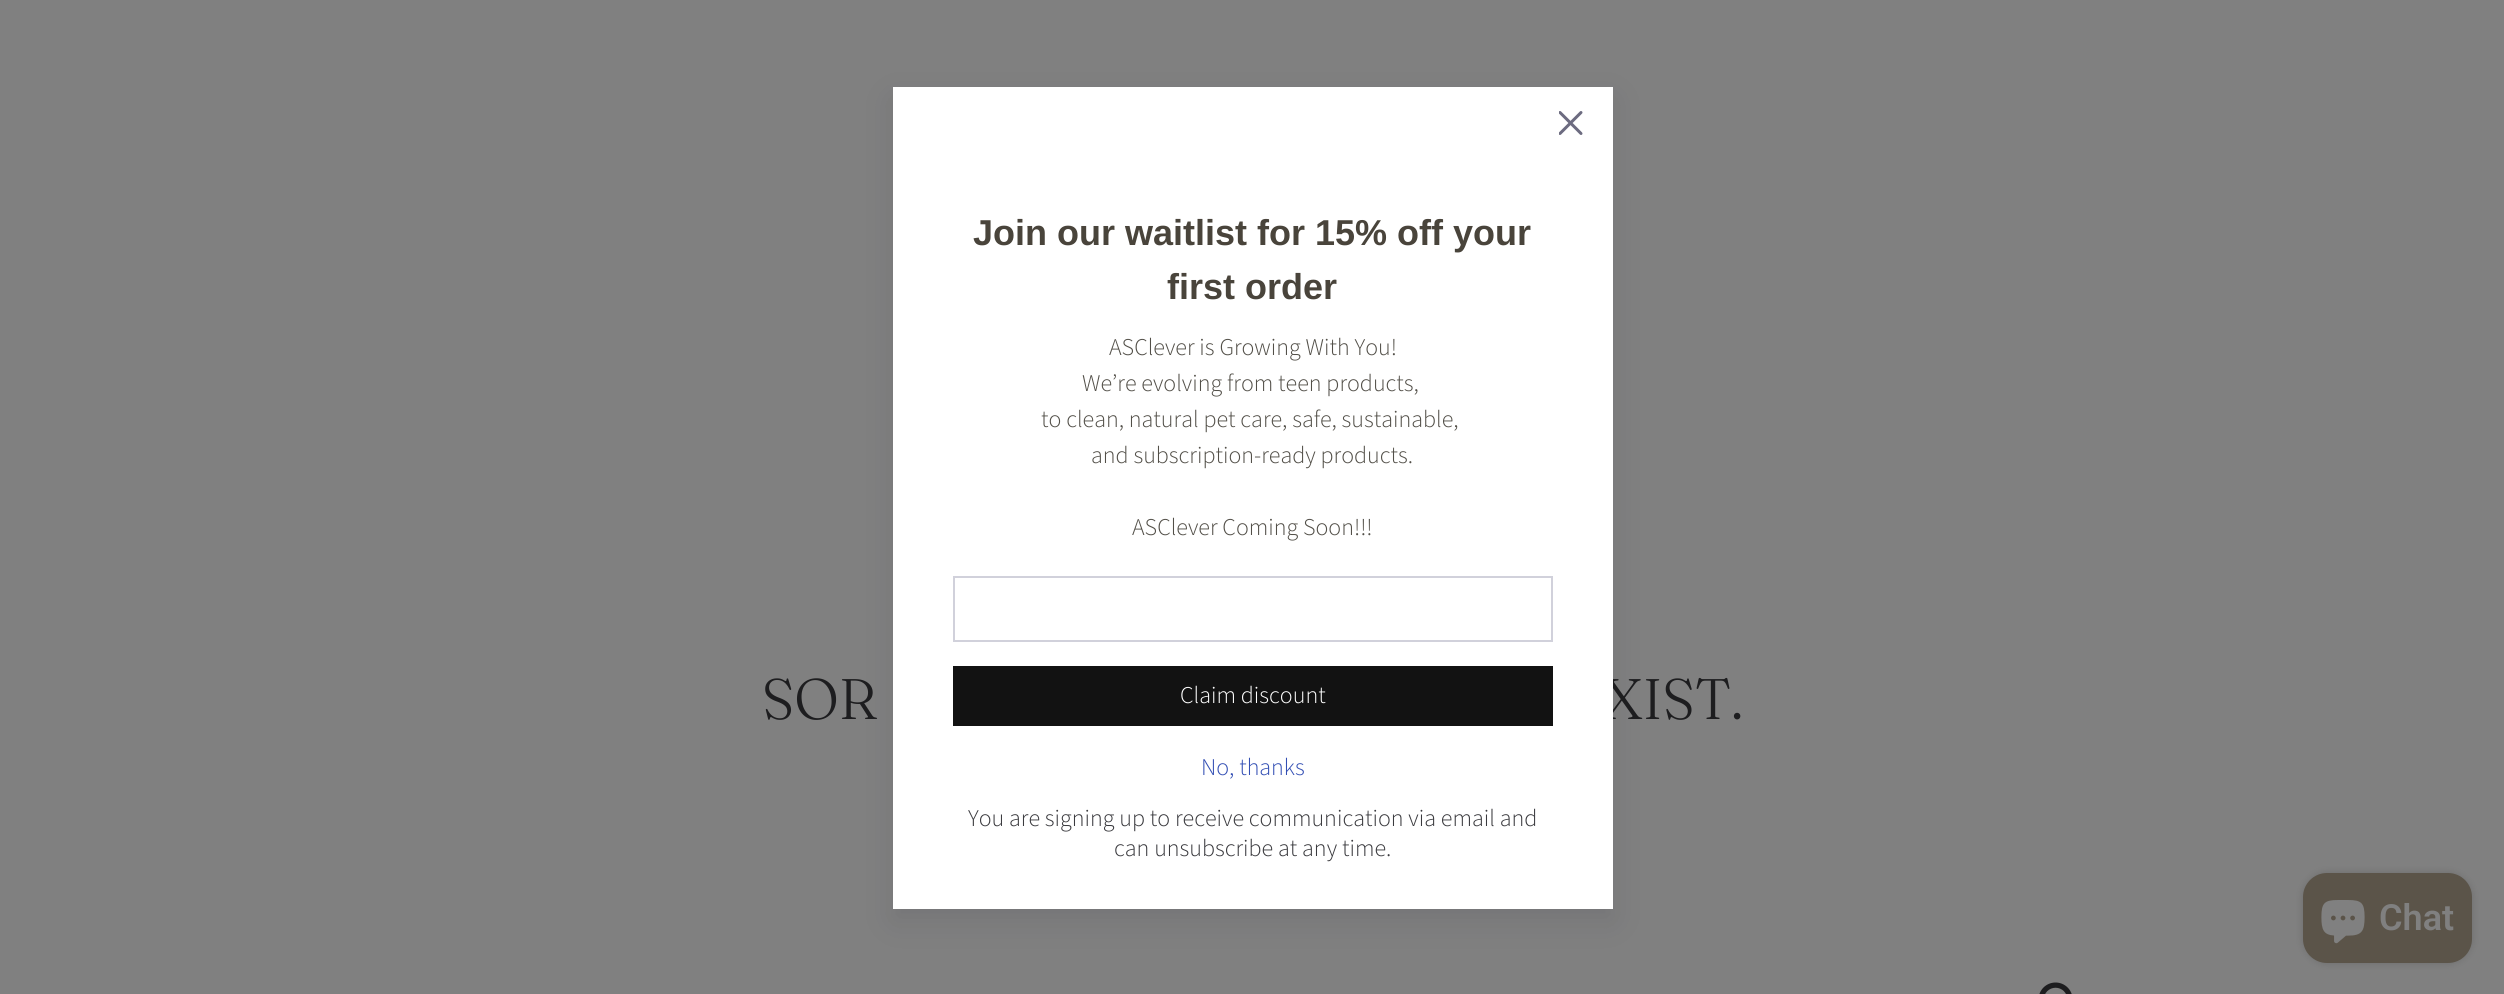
#include <cairo.h>
#include <math.h>
#include <stddef.h>

typedef struct { double x, y; const char *s; } line_t;

static void ink(cairo_t *ctx, unsigned color) {
    cairo_set_source_rgb(ctx, (color >> 16) / 255.0, (color >> 8 & 255) / 255.0, (color & 255) / 255.0);
}

static void round_path(cairo_t *ctx, double x, double y, double w, double h, double r) {
    cairo_new_sub_path(ctx);
    cairo_arc(ctx, x + w - r, y + h - r, r, 0, M_PI / 2);
    cairo_arc(ctx, x + r, y + h - r, r, M_PI / 2, M_PI);
    cairo_arc(ctx, x + r, y + r, r, M_PI, 1.5 * M_PI);
    cairo_arc(ctx, x + w - r, y + r, r, 1.5 * M_PI, 2 * M_PI);
    cairo_close_path(ctx);
}

static void blur_box(cairo_t *ctx, double x, double y, double w, double h, double r, double blur, double alpha) {
    cairo_push_group_with_content(ctx, CAIRO_CONTENT_ALPHA);
    cairo_set_operator(ctx, CAIRO_OPERATOR_SOURCE);
    for (int i = 15; i >= -15 && fmin(w, h) + blur * i / 3 > 0; i -= 2) {
        double e = blur * i / 6;
        cairo_set_source_rgba(ctx, 0, 0, 0, alpha * erfc((i - 1) / 8.5) / 2);
        round_path(ctx, x - e, y - e, w + 2 * e, h + 2 * e, fmax(0, fmin(r + e + blur * .6, fmin(w, h) / 2 + e)));
        cairo_fill(ctx);
    }
    cairo_pattern_t *soft = cairo_pop_group(ctx);
    cairo_mask(ctx, soft);
    cairo_pattern_destroy(soft);
}

static void paste(cairo_t *ctx, const char *path, double x, double y, double w, double h) {
    cairo_surface_t *image = cairo_image_surface_create_from_png(path);
    cairo_save(ctx);
    cairo_set_source_surface(ctx, image, x, y);
    cairo_rectangle(ctx, x, y, w, h);
    cairo_fill(ctx);
    cairo_restore(ctx);
    cairo_surface_destroy(image);
}

int main(void) {
    cairo_surface_t *surface = cairo_image_surface_create(CAIRO_FORMAT_RGB24, 2504, 994);
    cairo_t *ctx = cairo_create(surface);
    cairo_font_options_t *options = cairo_font_options_create();
    cairo_font_options_set_hint_metrics(options, CAIRO_HINT_METRICS_OFF);
    cairo_font_options_set_hint_style(options, CAIRO_HINT_STYLE_NONE);
    cairo_set_font_options(ctx, options);
    cairo_set_miter_limit(ctx, 4);
    ink(ctx, 0x808080);
    cairo_paint(ctx);
    ink(ctx, 0x121127);
    blur_box(ctx, 893, 99, 720, 822, 0, 15, 0.1);
    cairo_select_font_face(ctx, "Fraunces Light", CAIRO_FONT_SLANT_NORMAL, CAIRO_FONT_WEIGHT_NORMAL);
    cairo_set_font_size(ctx, 57);
    ink(ctx, 0x1D1D1F);
    cairo_move_to(ctx, 1603, 719);
    cairo_show_text(ctx, "XIST.");
    ink(ctx, 0xFFFFFF);
    cairo_rectangle(ctx, 893, 87, 720, 822);
    cairo_fill(ctx);
    paste(ctx, "media/1.png", 1559, 111, 24, 24);
    cairo_select_font_face(ctx, "Liberation Sans", CAIRO_FONT_SLANT_NORMAL, CAIRO_FONT_WEIGHT_BOLD);
    cairo_set_font_size(ctx, 36);
    ink(ctx, 0x49443B);
    cairo_move_to(ctx, 973, 245);
    cairo_show_text(ctx, "Join our waitlist for 15% off your");
    cairo_move_to(ctx, 1167, 299);
    cairo_show_text(ctx, "first order");
    cairo_select_font_face(ctx, "Source Sans Pro Light", CAIRO_FONT_SLANT_NORMAL, CAIRO_FONT_WEIGHT_NORMAL);
    cairo_set_font_size(ctx, 24);
    ink(ctx, 0x524F48);
    {
        static const line_t items[] = {
            {1109, 355, "ASClever is Growing With You!"},
            {1082, 391, "We’re evolving from teen products,"},
            {1041, 427, "to clean, natural pet care, safe, sustainable,"},
            {1091, 463, "and subscription-ready products."},
            {1132, 535, "ASClever Coming Soon!!!"},
        };
        for (size_t i = 0; i < sizeof items / sizeof *items; i++) {
            cairo_move_to(ctx, items[i].x, items[i].y);
            cairo_show_text(ctx, items[i].s);
        }
    }
    cairo_rectangle(ctx, 954, 577, 598, 64);
    ink(ctx, 0xD1D1DB);
    cairo_stroke(ctx);
    ink(ctx, 0x121212);
    cairo_rectangle(ctx, 953, 666, 600, 60);
    cairo_fill(ctx);
    ink(ctx, 0xFFFFFF);
    cairo_move_to(ctx, 1180, 703);
    cairo_show_text(ctx, "Claim discount");
    ink(ctx, 0x334FB4);
    cairo_move_to(ctx, 1201, 775);
    cairo_show_text(ctx, "No, thanks");
    ink(ctx, 0x3A3A3E);
    cairo_move_to(ctx, 968, 826);
    cairo_show_text(ctx, "You are signing up to receive communication via email and");
    cairo_move_to(ctx, 1114, 856);
    cairo_show_text(ctx, "can unsubscribe at any time.");
    cairo_select_font_face(ctx, "Fraunces Light", CAIRO_FONT_SLANT_NORMAL, CAIRO_FONT_WEIGHT_NORMAL);
    cairo_set_font_size(ctx, 57);
    ink(ctx, 0x1D1D1F);
    cairo_move_to(ctx, 762, 719);
    cairo_show_text(ctx, "SOR");
    paste(ctx, "media/2.png", 2039, 982, 33, 12);
    ink(ctx, 0x000000);
    blur_box(ctx, 2303, 873, 169, 90, 24, 4, 0.15);
    ink(ctx, 0x5B5449);
    round_path(ctx, 2303, 873, 169, 90, 24);
    cairo_fill(ctx);
    paste(ctx, "media/3.png", 2321, 900, 44, 44);
    cairo_select_font_face(ctx, "Roboto SemiBold", CAIRO_FONT_SLANT_NORMAL, CAIRO_FONT_WEIGHT_NORMAL);
    cairo_set_font_size(ctx, 36);
    ink(ctx, 0x808080);
    cairo_move_to(ctx, 2379, 930);
    cairo_show_text(ctx, "Chat");
    cairo_surface_write_to_png(surface, "image.png");
    cairo_font_options_destroy(options);
    cairo_destroy(ctx);
    cairo_surface_destroy(surface);
    return 0;
}
